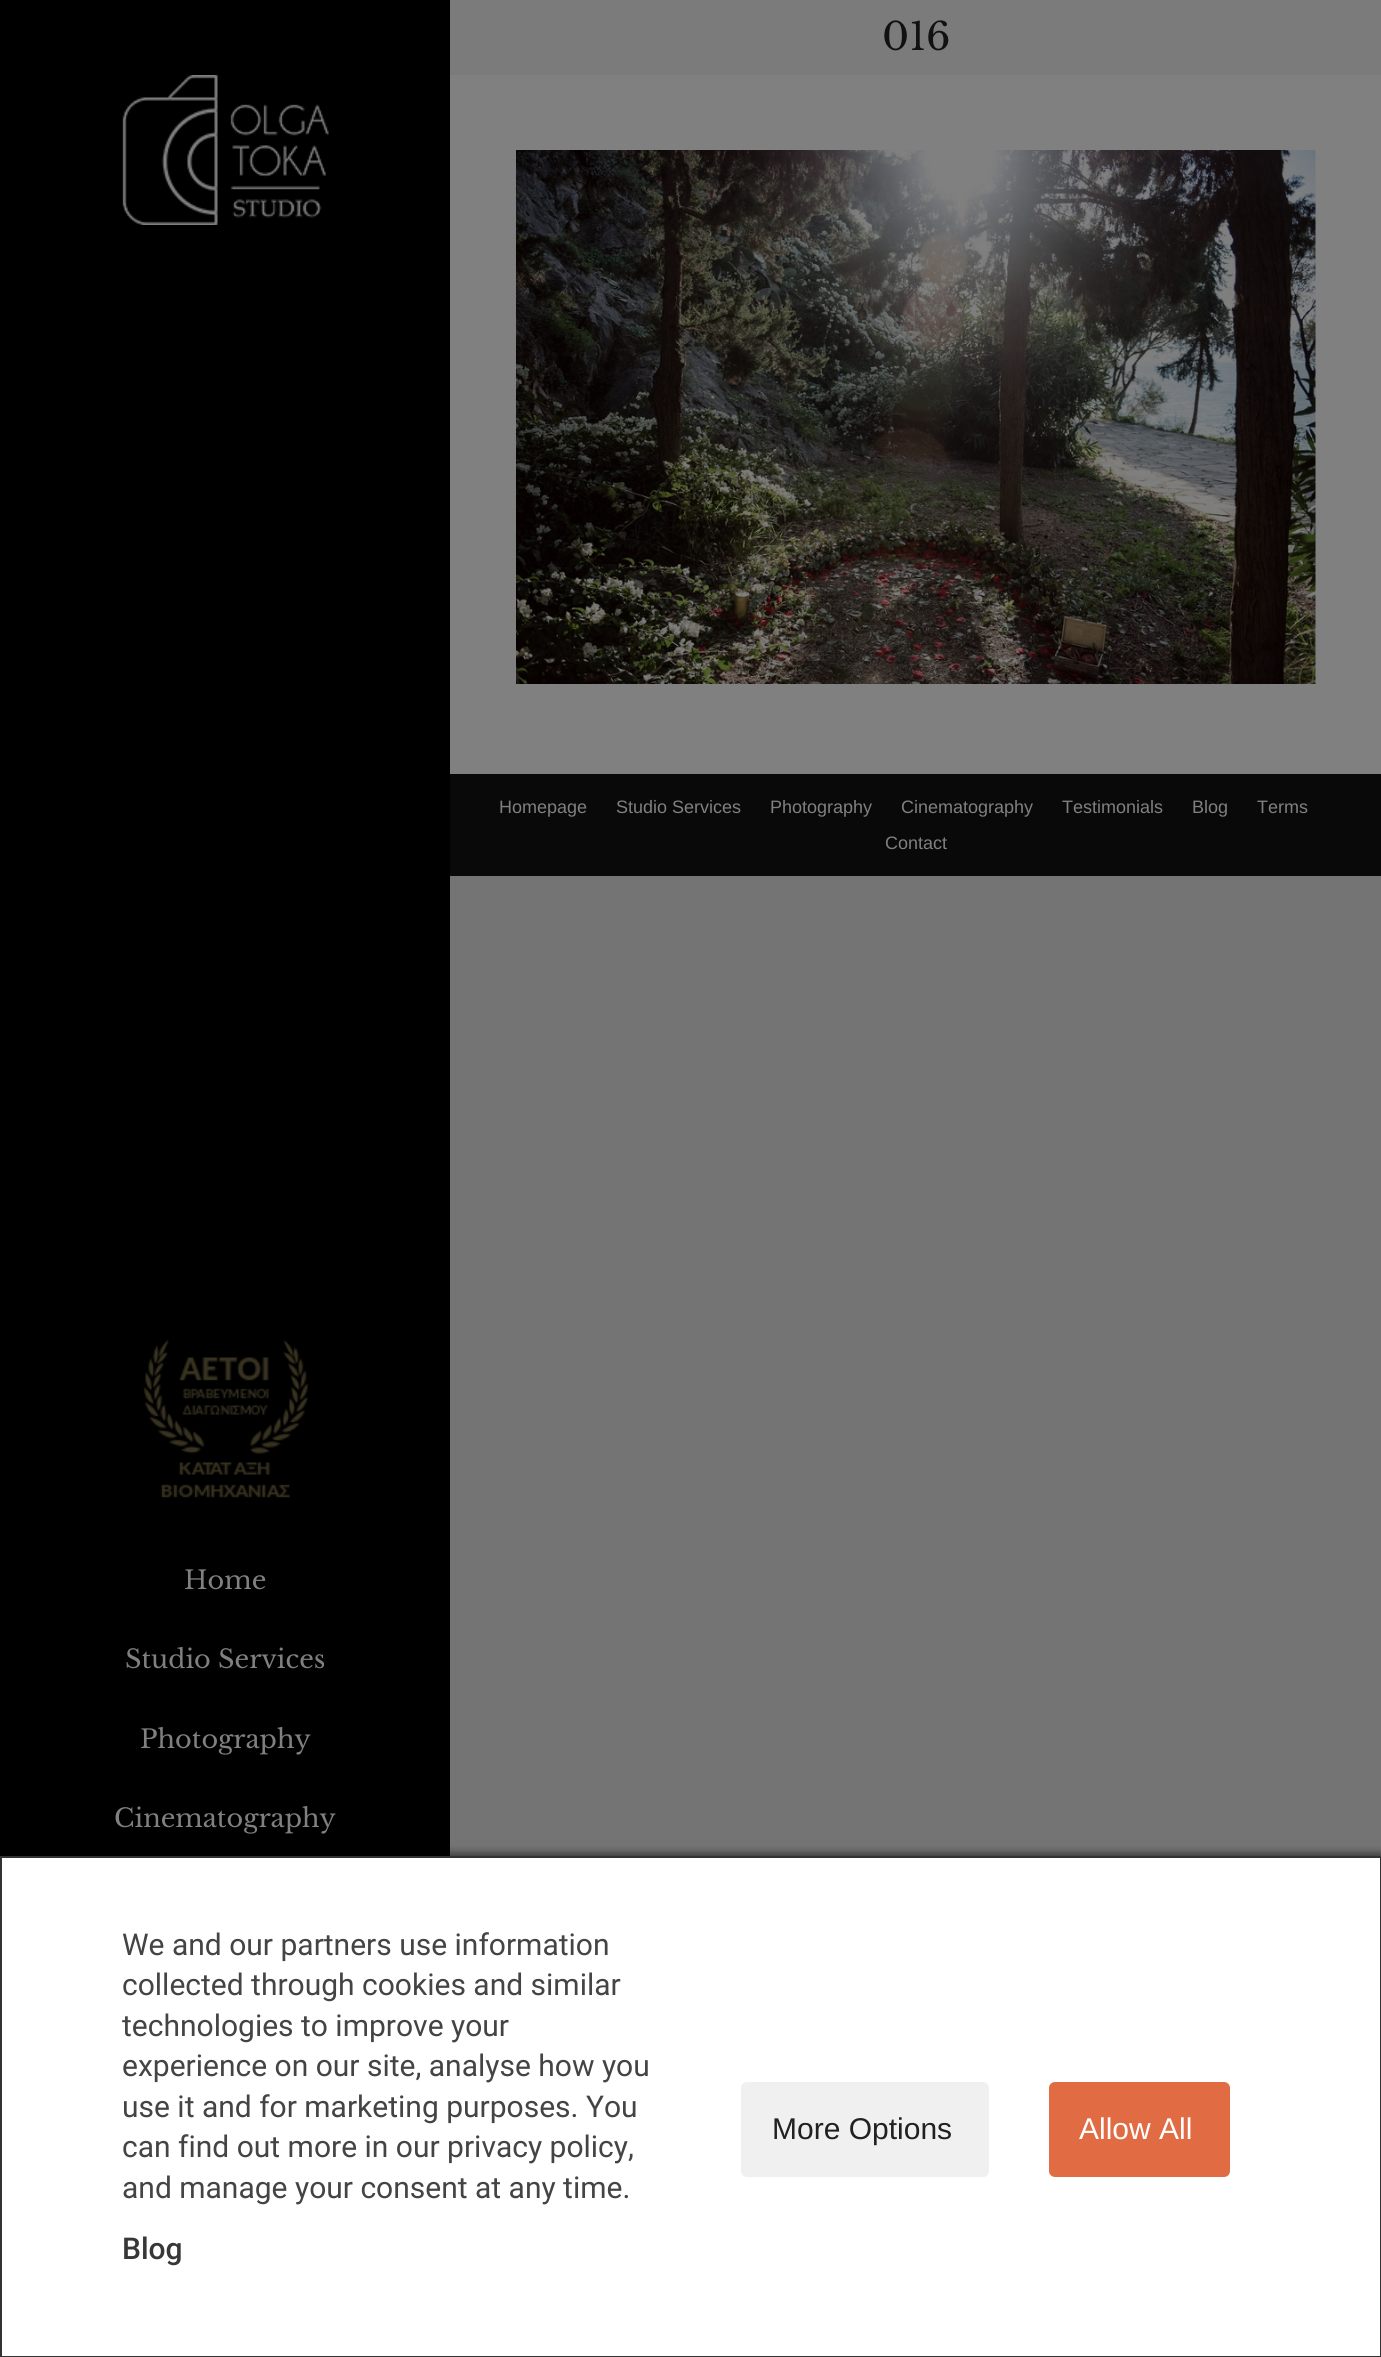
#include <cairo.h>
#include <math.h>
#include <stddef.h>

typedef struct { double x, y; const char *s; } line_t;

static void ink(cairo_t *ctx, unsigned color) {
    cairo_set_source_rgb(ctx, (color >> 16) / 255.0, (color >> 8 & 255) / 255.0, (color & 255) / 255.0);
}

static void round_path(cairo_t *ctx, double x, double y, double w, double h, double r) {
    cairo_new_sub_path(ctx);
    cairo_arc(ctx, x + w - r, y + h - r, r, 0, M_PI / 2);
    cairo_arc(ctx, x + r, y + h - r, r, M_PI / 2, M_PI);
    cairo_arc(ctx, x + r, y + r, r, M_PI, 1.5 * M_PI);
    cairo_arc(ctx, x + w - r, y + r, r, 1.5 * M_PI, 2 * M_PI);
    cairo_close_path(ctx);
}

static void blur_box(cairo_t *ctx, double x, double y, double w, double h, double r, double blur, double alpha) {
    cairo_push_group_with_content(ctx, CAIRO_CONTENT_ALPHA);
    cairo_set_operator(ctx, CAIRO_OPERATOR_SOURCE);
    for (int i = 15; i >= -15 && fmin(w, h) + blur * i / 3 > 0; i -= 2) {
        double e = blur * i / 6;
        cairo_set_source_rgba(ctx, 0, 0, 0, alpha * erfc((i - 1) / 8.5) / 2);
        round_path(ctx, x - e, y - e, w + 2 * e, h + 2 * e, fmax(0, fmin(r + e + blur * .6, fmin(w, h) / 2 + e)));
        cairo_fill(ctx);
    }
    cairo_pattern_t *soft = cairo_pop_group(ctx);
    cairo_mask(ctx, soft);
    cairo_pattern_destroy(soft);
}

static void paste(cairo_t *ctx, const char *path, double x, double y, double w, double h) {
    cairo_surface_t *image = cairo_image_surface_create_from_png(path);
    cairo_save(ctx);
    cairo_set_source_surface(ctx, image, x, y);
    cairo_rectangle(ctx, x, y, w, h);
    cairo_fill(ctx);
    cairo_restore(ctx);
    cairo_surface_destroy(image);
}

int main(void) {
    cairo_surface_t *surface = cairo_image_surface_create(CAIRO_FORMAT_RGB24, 1381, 2357);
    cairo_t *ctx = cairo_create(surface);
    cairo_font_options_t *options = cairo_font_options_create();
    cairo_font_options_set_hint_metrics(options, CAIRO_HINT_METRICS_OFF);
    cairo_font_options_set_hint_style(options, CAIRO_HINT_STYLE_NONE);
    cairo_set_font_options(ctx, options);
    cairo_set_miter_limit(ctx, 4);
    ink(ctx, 0x747474);
    cairo_paint(ctx);
    ink(ctx, 0x808080);
    cairo_rectangle(ctx, 450, 75, 931, 699);
    cairo_fill(ctx);
    ink(ctx, 0x7B7B7B);
    cairo_rectangle(ctx, 450, 0, 931, 75);
    cairo_fill(ctx);
    cairo_select_font_face(ctx, "Libre Baskerville", CAIRO_FONT_SLANT_NORMAL, CAIRO_FONT_WEIGHT_NORMAL);
    cairo_set_font_size(ctx, 38);
    ink(ctx, 0x111111);
    cairo_move_to(ctx, 882, 50);
    cairo_show_text(ctx, "016");
    paste(ctx, "media/1.png", 516, 150, 800, 534);
    ink(ctx, 0x090909);
    cairo_rectangle(ctx, 450, 774, 931, 102);
    cairo_fill(ctx);
    cairo_select_font_face(ctx, "Liberation Sans", CAIRO_FONT_SLANT_NORMAL, CAIRO_FONT_WEIGHT_NORMAL);
    cairo_set_font_size(ctx, 18);
    ink(ctx, 0x808080);
    {
        static const line_t items[] = {
            {499, 813, "Homepage"},
            {616, 813, "Studio Services"},
            {770, 813, "Photography"},
            {901, 813, "Cinematography"},
            {1062, 813, "Testimonials"},
            {1192, 813, "Blog"},
            {1257, 813, "Terms"},
            {885, 849, "Contact"},
        };
        for (size_t i = 0; i < sizeof items / sizeof *items; i++) {
            cairo_move_to(ctx, items[i].x, items[i].y);
            cairo_show_text(ctx, items[i].s);
        }
    }
    ink(ctx, 0x000000);
    cairo_rectangle(ctx, 0, 0, 450, 1856);
    cairo_fill(ctx);
    paste(ctx, "media/2.png", 122, 75, 207, 150);
    paste(ctx, "media/3.png", 143, 1339, 165, 159);
    cairo_select_font_face(ctx, "Libre Baskerville", CAIRO_FONT_SLANT_NORMAL, CAIRO_FONT_WEIGHT_NORMAL);
    cairo_set_font_size(ctx, 25.5);
    ink(ctx, 0x808080);
    {
        static const line_t items[] = {
            {184, 1589, "Home"},
            {125, 1668, "Studio Services"},
            {140, 1748, "Photography"},
            {114, 1827, "Cinematography"},
        };
        for (size_t i = 0; i < sizeof items / sizeof *items; i++) {
            cairo_move_to(ctx, items[i].x, items[i].y);
            cairo_show_text(ctx, items[i].s);
        }
    }
    ink(ctx, 0x000000);
    blur_box(ctx, 0, 1853, 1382, 502, 0, 4, 0.5);
    ink(ctx, 0xFFFFFF);
    cairo_rectangle(ctx, 1, 1857, 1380, 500);
    cairo_fill_preserve(ctx);
    ink(ctx, 0x333333);
    cairo_stroke(ctx);
    cairo_select_font_face(ctx, "Roboto", CAIRO_FONT_SLANT_NORMAL, CAIRO_FONT_WEIGHT_NORMAL);
    cairo_set_font_size(ctx, 30);
    ink(ctx, 0x444444);
    {
        static const line_t items[] = {
            {122, 1955, "We and our partners use information"},
            {122, 1995, "collected through cookies and similar"},
            {122, 2036, "technologies to improve your"},
            {122, 2076, "experience on our site, analyse how you"},
            {122, 2117, "use it and for marketing purposes. You"},
            {122, 2157, "can find out more in our privacy policy,"},
            {122, 2198, "and manage your consent at any time."},
        };
        for (size_t i = 0; i < sizeof items / sizeof *items; i++) {
            cairo_move_to(ctx, items[i].x, items[i].y);
            cairo_show_text(ctx, items[i].s);
        }
    }
    cairo_select_font_face(ctx, "Roboto Medium", CAIRO_FONT_SLANT_NORMAL, CAIRO_FONT_WEIGHT_NORMAL);
    ink(ctx, 0x373737);
    cairo_move_to(ctx, 122, 2259);
    cairo_show_text(ctx, "Blog");
    ink(ctx, 0xF0F0F0);
    round_path(ctx, 741, 2082, 248, 95, 6);
    cairo_fill(ctx);
    cairo_select_font_face(ctx, "Liberation Sans", CAIRO_FONT_SLANT_NORMAL, CAIRO_FONT_WEIGHT_NORMAL);
    ink(ctx, 0x212121);
    cairo_move_to(ctx, 772, 2139);
    cairo_show_text(ctx, "More Options");
    ink(ctx, 0xE16B43);
    round_path(ctx, 1049, 2082, 181, 95, 6);
    cairo_fill(ctx);
    ink(ctx, 0xFFFFFF);
    cairo_move_to(ctx, 1079, 2139);
    cairo_show_text(ctx, "Allow All");
    cairo_surface_write_to_png(surface, "image.png");
    cairo_font_options_destroy(options);
    cairo_destroy(ctx);
    cairo_surface_destroy(surface);
    return 0;
}
